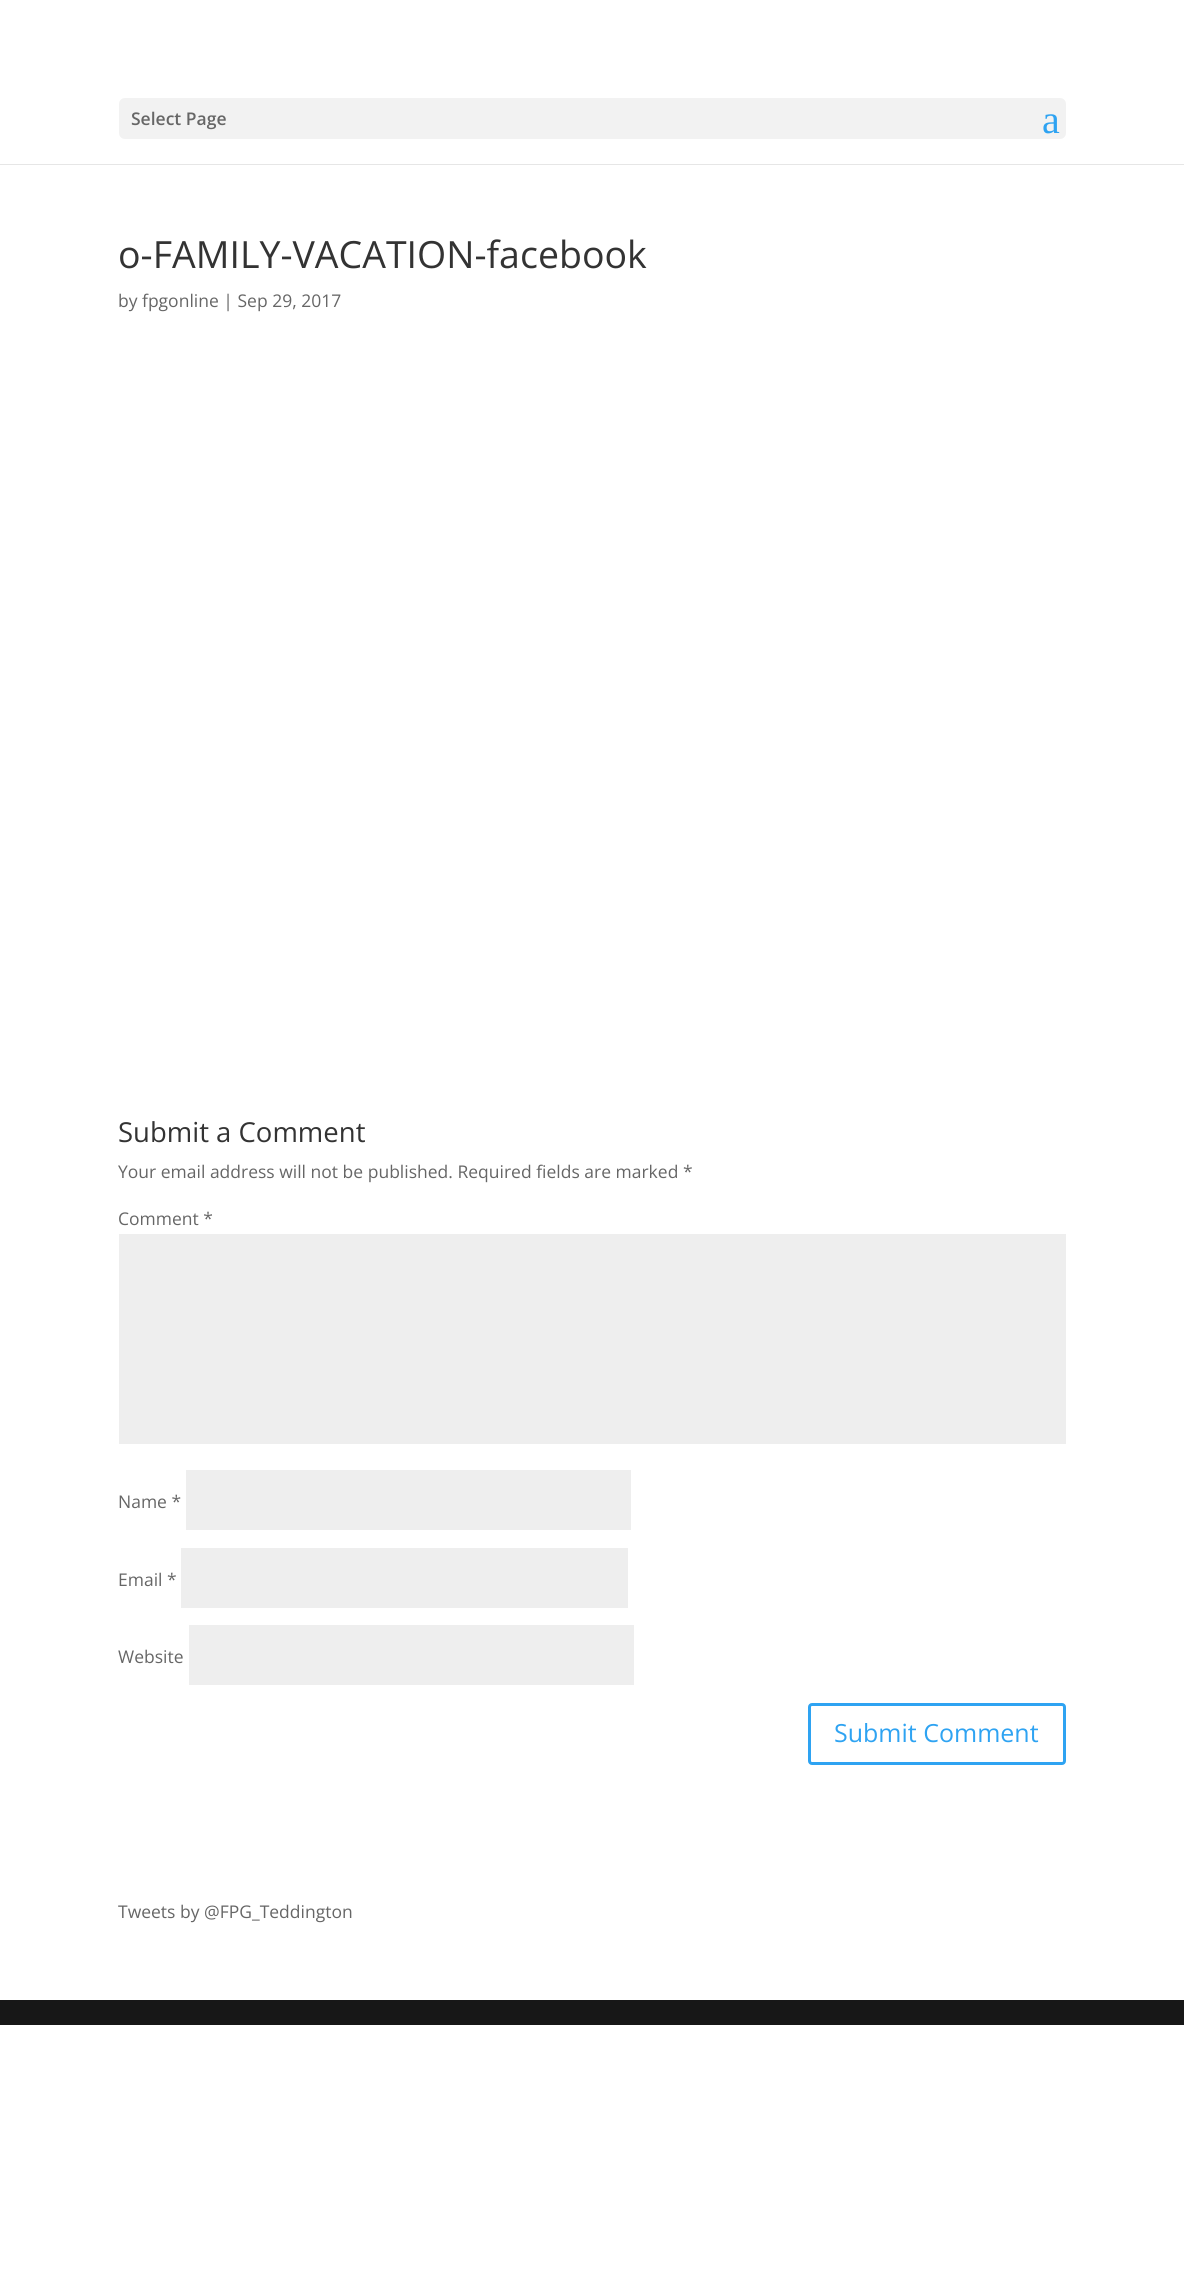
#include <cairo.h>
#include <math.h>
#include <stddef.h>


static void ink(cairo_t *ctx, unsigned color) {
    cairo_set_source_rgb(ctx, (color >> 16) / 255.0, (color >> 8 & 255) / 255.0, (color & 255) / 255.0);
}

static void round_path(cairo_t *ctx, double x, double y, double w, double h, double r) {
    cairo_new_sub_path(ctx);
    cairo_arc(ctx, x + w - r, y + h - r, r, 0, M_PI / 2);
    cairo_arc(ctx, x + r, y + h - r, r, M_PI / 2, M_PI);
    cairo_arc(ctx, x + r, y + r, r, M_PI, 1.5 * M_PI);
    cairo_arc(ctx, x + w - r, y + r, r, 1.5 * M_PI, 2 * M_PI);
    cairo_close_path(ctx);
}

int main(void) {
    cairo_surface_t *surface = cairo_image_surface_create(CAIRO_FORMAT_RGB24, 1184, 2286);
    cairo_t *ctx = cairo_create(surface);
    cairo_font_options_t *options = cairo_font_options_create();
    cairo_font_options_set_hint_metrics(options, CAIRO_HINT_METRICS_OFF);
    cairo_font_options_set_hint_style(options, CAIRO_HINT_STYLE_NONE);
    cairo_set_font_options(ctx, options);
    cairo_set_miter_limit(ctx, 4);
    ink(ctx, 0xFFFFFF);
    cairo_paint(ctx);
    ink(ctx, 0xE6E6E6);
    cairo_rectangle(ctx, 0, 164, 1184, 1);
    cairo_fill(ctx);
    ink(ctx, 0xF2F2F2);
    round_path(ctx, 119, 98, 947, 41, 6);
    cairo_fill(ctx);
    cairo_select_font_face(ctx, "Open Sans SemiBold", CAIRO_FONT_SLANT_NORMAL, CAIRO_FONT_WEIGHT_NORMAL);
    cairo_set_font_size(ctx, 17.5);
    ink(ctx, 0x666666);
    cairo_move_to(ctx, 131, 125);
    cairo_show_text(ctx, "Select Page");
    cairo_select_font_face(ctx, "Liberation Serif", CAIRO_FONT_SLANT_NORMAL, CAIRO_FONT_WEIGHT_NORMAL);
    cairo_set_font_size(ctx, 40);
    ink(ctx, 0x2EA3F2);
    cairo_move_to(ctx, 1042, 133);
    cairo_show_text(ctx, "a");
    cairo_select_font_face(ctx, "Open Sans", CAIRO_FONT_SLANT_NORMAL, CAIRO_FONT_WEIGHT_NORMAL);
    cairo_set_font_size(ctx, 37.5);
    ink(ctx, 0x333333);
    cairo_move_to(ctx, 118, 268);
    cairo_show_text(ctx, "o-FAMILY-VACATION-facebook");
    cairo_set_font_size(ctx, 17.5);
    ink(ctx, 0x666666);
    cairo_move_to(ctx, 118, 307);
    cairo_show_text(ctx, "by fpgonline | Sep 29, 2017");
    cairo_set_font_size(ctx, 27.5);
    ink(ctx, 0x333333);
    cairo_move_to(ctx, 118, 1142);
    cairo_show_text(ctx, "Submit a Comment");
    cairo_set_font_size(ctx, 17.5);
    ink(ctx, 0x666666);
    cairo_move_to(ctx, 118, 1178);
    cairo_show_text(ctx, "Your email address will not be published. Required fields are marked *");
    cairo_move_to(ctx, 118, 1225);
    cairo_show_text(ctx, "Comment *");
    ink(ctx, 0xEEEEEE);
    cairo_rectangle(ctx, 119, 1234, 947, 210);
    cairo_fill(ctx);
    ink(ctx, 0x666666);
    cairo_move_to(ctx, 118, 1508);
    cairo_show_text(ctx, "Name *");
    ink(ctx, 0xEEEEEE);
    cairo_rectangle(ctx, 186, 1470, 445, 60);
    cairo_fill(ctx);
    ink(ctx, 0x666666);
    cairo_move_to(ctx, 118, 1586);
    cairo_show_text(ctx, "Email *");
    ink(ctx, 0xEEEEEE);
    cairo_rectangle(ctx, 181, 1548, 447, 60);
    cairo_fill(ctx);
    ink(ctx, 0x666666);
    cairo_move_to(ctx, 118, 1663);
    cairo_show_text(ctx, "Website");
    ink(ctx, 0xEEEEEE);
    cairo_rectangle(ctx, 189, 1625, 445, 60);
    cairo_fill(ctx);
    round_path(ctx, 809.5, 1704.5, 255, 59, 2.5);
    ink(ctx, 0x2EA3F2);
    cairo_set_line_width(ctx, 3);
    cairo_stroke(ctx);
    cairo_set_font_size(ctx, 25);
    cairo_move_to(ctx, 834, 1742);
    cairo_show_text(ctx, "Submit Comment");
    cairo_set_font_size(ctx, 17.5);
    ink(ctx, 0x666666);
    cairo_move_to(ctx, 118, 1918);
    cairo_show_text(ctx, "Tweets by @FPG_Teddington");
    ink(ctx, 0x171717);
    cairo_rectangle(ctx, 0, 2000, 1184, 25);
    cairo_fill(ctx);
    cairo_surface_write_to_png(surface, "image.png");
    cairo_font_options_destroy(options);
    cairo_destroy(ctx);
    cairo_surface_destroy(surface);
    return 0;
}
